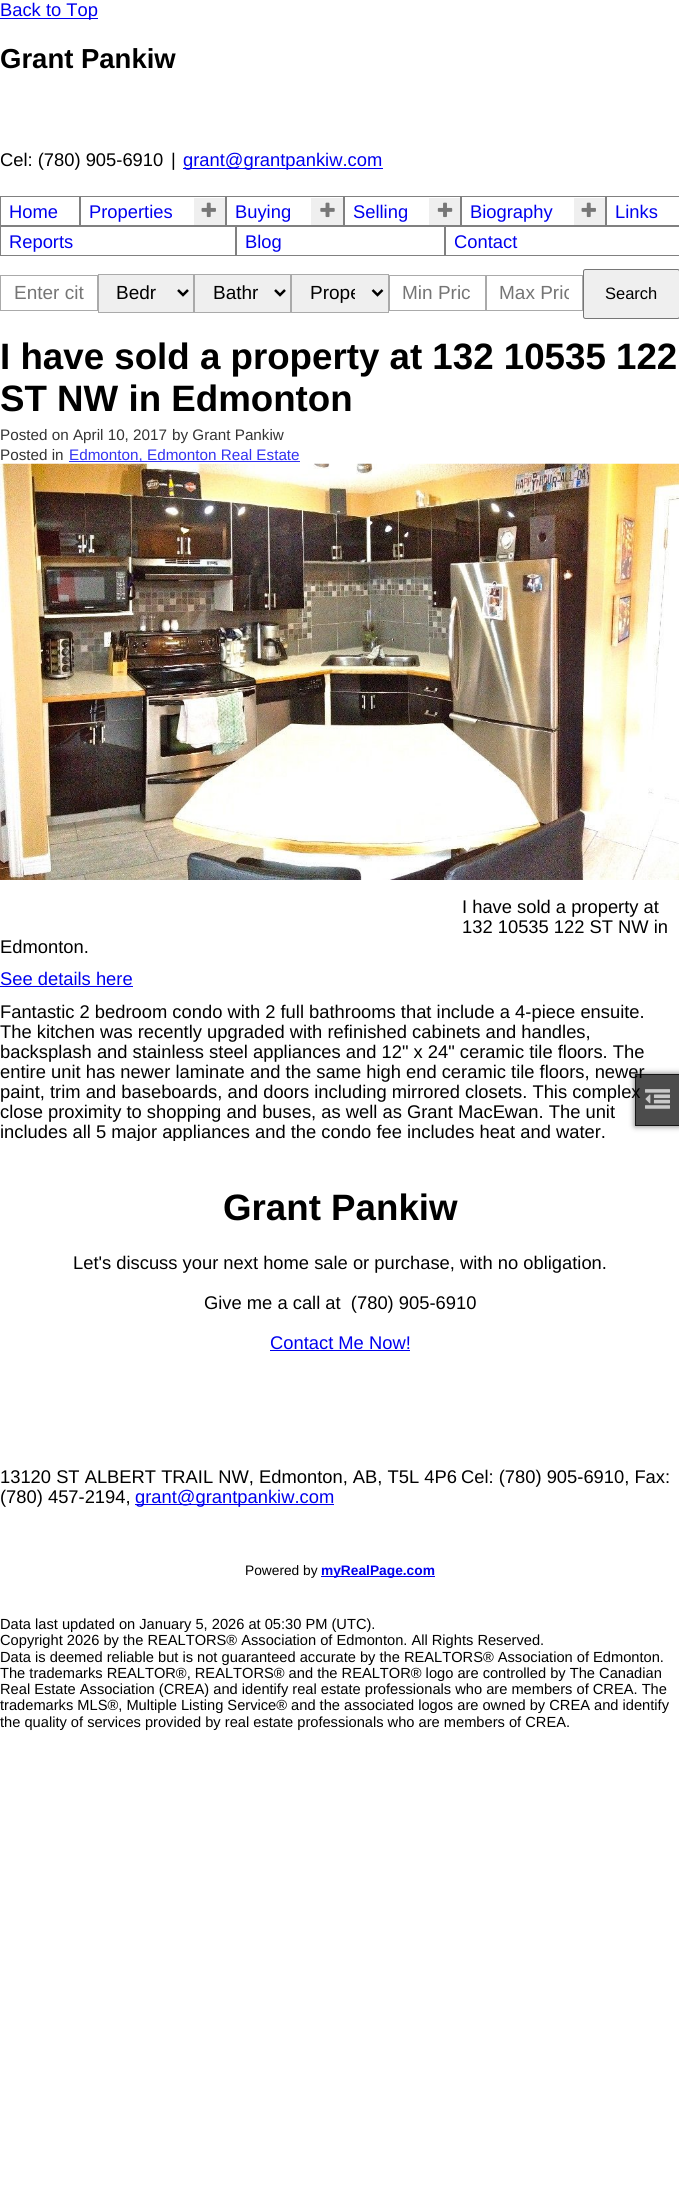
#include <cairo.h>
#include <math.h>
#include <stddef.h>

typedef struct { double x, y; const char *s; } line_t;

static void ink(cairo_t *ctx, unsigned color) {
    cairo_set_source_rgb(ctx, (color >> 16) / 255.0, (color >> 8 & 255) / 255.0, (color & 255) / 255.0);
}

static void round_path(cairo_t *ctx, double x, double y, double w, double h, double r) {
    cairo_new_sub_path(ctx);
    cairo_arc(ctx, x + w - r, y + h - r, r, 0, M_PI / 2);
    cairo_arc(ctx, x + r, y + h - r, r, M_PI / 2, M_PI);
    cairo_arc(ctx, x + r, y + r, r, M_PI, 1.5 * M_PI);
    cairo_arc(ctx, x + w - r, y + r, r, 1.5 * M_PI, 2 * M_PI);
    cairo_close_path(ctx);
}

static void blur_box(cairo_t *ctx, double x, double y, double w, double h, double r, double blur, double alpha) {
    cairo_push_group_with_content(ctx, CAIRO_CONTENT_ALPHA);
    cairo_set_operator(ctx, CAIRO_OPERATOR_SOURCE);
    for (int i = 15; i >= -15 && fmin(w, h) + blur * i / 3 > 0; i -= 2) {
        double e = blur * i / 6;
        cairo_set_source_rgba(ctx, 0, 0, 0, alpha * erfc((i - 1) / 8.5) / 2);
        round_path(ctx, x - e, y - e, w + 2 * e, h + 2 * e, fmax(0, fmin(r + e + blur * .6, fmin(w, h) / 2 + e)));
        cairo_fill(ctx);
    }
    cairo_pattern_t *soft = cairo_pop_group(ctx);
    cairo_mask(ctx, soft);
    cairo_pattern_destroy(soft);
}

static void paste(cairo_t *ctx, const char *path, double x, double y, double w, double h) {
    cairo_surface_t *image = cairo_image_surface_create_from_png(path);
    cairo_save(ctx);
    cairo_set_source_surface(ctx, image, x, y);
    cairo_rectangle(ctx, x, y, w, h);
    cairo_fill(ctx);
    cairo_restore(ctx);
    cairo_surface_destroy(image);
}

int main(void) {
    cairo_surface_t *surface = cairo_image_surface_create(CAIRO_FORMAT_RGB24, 679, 2198);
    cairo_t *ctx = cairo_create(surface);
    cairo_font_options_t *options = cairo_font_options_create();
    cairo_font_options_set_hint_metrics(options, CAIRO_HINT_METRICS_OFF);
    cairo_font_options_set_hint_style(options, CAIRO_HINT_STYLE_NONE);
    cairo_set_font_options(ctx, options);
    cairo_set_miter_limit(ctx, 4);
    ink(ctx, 0xFFFFFF);
    cairo_paint(ctx);
    ink(ctx, 0x0000EE);
    cairo_rectangle(ctx, 0, 18, 98, 1);
    cairo_fill(ctx);
    cairo_select_font_face(ctx, "Liberation Sans", CAIRO_FONT_SLANT_NORMAL, CAIRO_FONT_WEIGHT_NORMAL);
    cairo_set_font_size(ctx, 18.35);
    cairo_move_to(ctx, 0, 16);
    cairo_show_text(ctx, "Back to Top");
    cairo_select_font_face(ctx, "Liberation Sans", CAIRO_FONT_SLANT_NORMAL, CAIRO_FONT_WEIGHT_BOLD);
    cairo_set_font_size(ctx, 27.5);
    ink(ctx, 0x000000);
    cairo_move_to(ctx, 0, 68);
    cairo_show_text(ctx, "Grant Pankiw");
    cairo_select_font_face(ctx, "Liberation Sans", CAIRO_FONT_SLANT_NORMAL, CAIRO_FONT_WEIGHT_NORMAL);
    cairo_set_font_size(ctx, 18.35);
    cairo_move_to(ctx, 0, 166);
    cairo_show_text(ctx, "Cel: (780) 905-6910");
    cairo_move_to(ctx, 171, 166);
    cairo_show_text(ctx, "|");
    ink(ctx, 0x0000EE);
    cairo_rectangle(ctx, 183, 168, 200, 1);
    cairo_fill(ctx);
    cairo_move_to(ctx, 183, 166);
    cairo_show_text(ctx, "grant@grantpankiw.com");
    cairo_rectangle(ctx, 0.5, 196.5, 79, 29);
    ink(ctx, 0x808080);
    cairo_set_line_width(ctx, 1);
    cairo_stroke(ctx);
    ink(ctx, 0x0000EE);
    cairo_move_to(ctx, 9, 218);
    cairo_show_text(ctx, "Home");
    cairo_rectangle(ctx, 80.5, 196.5, 145, 29);
    ink(ctx, 0x808080);
    cairo_stroke(ctx);
    ink(ctx, 0x0000EE);
    cairo_move_to(ctx, 89, 218);
    cairo_show_text(ctx, "Properties");
    ink(ctx, 0xEFEFEF);
    cairo_rectangle(ctx, 194, 198, 31, 27);
    cairo_fill(ctx);
    paste(ctx, "media/1.png", 201, 202, 15, 16);
    cairo_rectangle(ctx, 226.5, 196.5, 117, 29);
    ink(ctx, 0x808080);
    cairo_stroke(ctx);
    ink(ctx, 0x0000EE);
    cairo_move_to(ctx, 235, 218);
    cairo_show_text(ctx, "Buying");
    ink(ctx, 0xEFEFEF);
    cairo_rectangle(ctx, 311, 198, 32, 27);
    cairo_fill(ctx);
    paste(ctx, "media/2.png", 320, 202, 15, 16);
    cairo_rectangle(ctx, 344.5, 196.5, 116, 29);
    ink(ctx, 0x808080);
    cairo_stroke(ctx);
    ink(ctx, 0x0000EE);
    cairo_move_to(ctx, 353, 218);
    cairo_show_text(ctx, "Selling");
    ink(ctx, 0xEFEFEF);
    cairo_rectangle(ctx, 429, 198, 31, 27);
    cairo_fill(ctx);
    paste(ctx, "media/3.png", 437, 202, 16, 16);
    cairo_rectangle(ctx, 461.5, 196.5, 144, 29);
    ink(ctx, 0x808080);
    cairo_stroke(ctx);
    ink(ctx, 0x0000EE);
    cairo_move_to(ctx, 470, 218);
    cairo_show_text(ctx, "Biography");
    ink(ctx, 0xEFEFEF);
    cairo_rectangle(ctx, 574, 198, 31, 27);
    cairo_fill(ctx);
    paste(ctx, "media/1.png", 581, 202, 15, 16);
    cairo_rectangle(ctx, 606.5, 196.5, 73, 29);
    ink(ctx, 0x808080);
    cairo_stroke(ctx);
    ink(ctx, 0x0000EE);
    cairo_move_to(ctx, 615, 218);
    cairo_show_text(ctx, "Links");
    cairo_rectangle(ctx, 0.5, 226.5, 235, 29);
    ink(ctx, 0x808080);
    cairo_stroke(ctx);
    ink(ctx, 0x0000EE);
    cairo_move_to(ctx, 9, 248);
    cairo_show_text(ctx, "Reports");
    cairo_rectangle(ctx, 236.5, 226.5, 208, 29);
    ink(ctx, 0x808080);
    cairo_stroke(ctx);
    ink(ctx, 0x0000EE);
    cairo_move_to(ctx, 245, 248);
    cairo_show_text(ctx, "Blog");
    cairo_rectangle(ctx, 445.5, 226.5, 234, 29);
    ink(ctx, 0x808080);
    cairo_stroke(ctx);
    ink(ctx, 0x0000EE);
    cairo_move_to(ctx, 454, 248);
    cairo_show_text(ctx, "Contact");
    cairo_rectangle(ctx, 0.5, 275.5, 97, 35);
    ink(ctx, 0xAAAAAA);
    cairo_stroke(ctx);
    cairo_set_font_size(ctx, 19);
    ink(ctx, 0x757575);
    cairo_move_to(ctx, 14, 299);
    cairo_show_text(ctx, "Enter cit");
    ink(ctx, 0xEFEFEF);
    cairo_rectangle(ctx, 98.5, 274.5, 95, 38);
    cairo_fill_preserve(ctx);
    ink(ctx, 0xAAAAAA);
    cairo_stroke(ctx);
    cairo_new_path(ctx);
    cairo_move_to(ctx, 178, 290);
    cairo_line_to(ctx, 183, 295);
    cairo_line_to(ctx, 188, 290);
    ink(ctx, 0x000000);
    cairo_set_line_width(ctx, 2.5);
    cairo_stroke(ctx);
    cairo_move_to(ctx, 116, 299);
    cairo_show_text(ctx, "Bedr");
    ink(ctx, 0xEFEFEF);
    cairo_rectangle(ctx, 194.5, 274.5, 96, 38);
    cairo_fill_preserve(ctx);
    ink(ctx, 0xAAAAAA);
    cairo_set_line_width(ctx, 1);
    cairo_stroke(ctx);
    cairo_new_path(ctx);
    cairo_move_to(ctx, 275, 290);
    cairo_line_to(ctx, 280, 295);
    cairo_line_to(ctx, 285, 290);
    ink(ctx, 0x000000);
    cairo_set_line_width(ctx, 2.5);
    cairo_stroke(ctx);
    cairo_move_to(ctx, 213, 299);
    cairo_show_text(ctx, "Bathr");
    ink(ctx, 0xEFEFEF);
    cairo_rectangle(ctx, 291.5, 274.5, 97, 38);
    cairo_fill_preserve(ctx);
    ink(ctx, 0xAAAAAA);
    cairo_set_line_width(ctx, 1);
    cairo_stroke(ctx);
    cairo_new_path(ctx);
    cairo_move_to(ctx, 372.5, 290);
    cairo_line_to(ctx, 377.5, 295);
    cairo_line_to(ctx, 382.5, 290);
    ink(ctx, 0x000000);
    cairo_set_line_width(ctx, 2.5);
    cairo_stroke(ctx);
    cairo_save(ctx);
    cairo_rectangle(ctx, 310, 281, 45, 24);
    cairo_clip(ctx);
    cairo_move_to(ctx, 310, 299);
    cairo_show_text(ctx, "Prope");
    cairo_restore(ctx);
    cairo_rectangle(ctx, 389.5, 275.5, 96, 35);
    ink(ctx, 0xAAAAAA);
    cairo_set_line_width(ctx, 1);
    cairo_stroke(ctx);
    ink(ctx, 0x757575);
    cairo_move_to(ctx, 402, 299);
    cairo_show_text(ctx, "Min Pric");
    cairo_rectangle(ctx, 486.5, 275.5, 96, 35);
    ink(ctx, 0xAAAAAA);
    cairo_stroke(ctx);
    cairo_save(ctx);
    cairo_rectangle(ctx, 500, 283, 69, 21);
    cairo_clip(ctx);
    ink(ctx, 0x757575);
    cairo_move_to(ctx, 499, 299);
    cairo_show_text(ctx, "Max Pric");
    cairo_restore(ctx);
    ink(ctx, 0xEFEFEF);
    round_path(ctx, 583.5, 269.5, 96, 49, 2);
    cairo_fill_preserve(ctx);
    ink(ctx, 0x767676);
    cairo_stroke(ctx);
    cairo_set_font_size(ctx, 16.5);
    ink(ctx, 0x000000);
    cairo_move_to(ctx, 605, 299);
    cairo_show_text(ctx, "Search");
    cairo_select_font_face(ctx, "Liberation Sans", CAIRO_FONT_SLANT_NORMAL, CAIRO_FONT_WEIGHT_BOLD);
    cairo_set_font_size(ctx, 36.7);
    cairo_move_to(ctx, 0, 369);
    cairo_show_text(ctx, "I have sold a property at 132 10535 122");
    cairo_move_to(ctx, 0, 411);
    cairo_show_text(ctx, "ST NW in Edmonton");
    cairo_select_font_face(ctx, "Liberation Sans", CAIRO_FONT_SLANT_NORMAL, CAIRO_FONT_WEIGHT_NORMAL);
    cairo_set_font_size(ctx, 15.25);
    ink(ctx, 0x333333);
    {
        static const line_t items[] = {
            {0, 440, "Posted on April 10, 2017"},
            {172, 440, "by Grant Pankiw"},
            {0, 460, "Posted in"},
        };
        for (size_t i = 0; i < sizeof items / sizeof *items; i++) {
            cairo_move_to(ctx, items[i].x, items[i].y);
            cairo_show_text(ctx, items[i].s);
        }
    }
    ink(ctx, 0x3333F1);
    cairo_rectangle(ctx, 69, 461, 231, 1);
    cairo_fill(ctx);
    cairo_move_to(ctx, 69, 460);
    cairo_show_text(ctx, "Edmonton, Edmonton Real Estate");
    paste(ctx, "media/4.png", 0, 463, 679, 417);
    cairo_set_font_size(ctx, 18.35);
    ink(ctx, 0x000000);
    {
        static const line_t items[] = {
            {462, 913, "I have sold a property at"},
            {462, 933, "132 10535 122 ST NW in"},
            {0, 953, "Edmonton."},
        };
        for (size_t i = 0; i < sizeof items / sizeof *items; i++) {
            cairo_move_to(ctx, items[i].x, items[i].y);
            cairo_show_text(ctx, items[i].s);
        }
    }
    ink(ctx, 0x0000EE);
    cairo_move_to(ctx, 0, 985);
    cairo_show_text(ctx, "See details here");
    cairo_rectangle(ctx, 0, 986, 133, 1);
    cairo_fill(ctx);
    ink(ctx, 0x000000);
    {
        static const line_t items[] = {
            {0, 1018, "Fantastic 2 bedroom condo with 2 full bathrooms that include a 4-piece ensuite."},
            {0, 1038, "The kitchen was recently upgraded with refinished cabinets and handles,"},
            {0, 1058, "backsplash and stainless steel appliances and 12\" x 24\" ceramic tile floors. The"},
            {0, 1078, "entire unit has newer laminate and the same high end ceramic tile floors, newer"},
            {0, 1098, "paint, trim and baseboards, and doors including mirrored closets. This complex"},
            {0, 1118, "close proximity to shopping and buses, as well as Grant MacEwan. The unit"},
        };
        for (size_t i = 0; i < sizeof items / sizeof *items; i++) {
            cairo_move_to(ctx, items[i].x, items[i].y);
            cairo_show_text(ctx, items[i].s);
        }
    }
    cairo_save(ctx);
    cairo_rectangle(ctx, 0, 896, 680, 245);
    cairo_clip(ctx);
    cairo_move_to(ctx, 0, 1138);
    cairo_show_text(ctx, "includes all 5 major appliances and the condo fee includes heat and water.");
    cairo_restore(ctx);
    cairo_select_font_face(ctx, "Liberation Sans", CAIRO_FONT_SLANT_NORMAL, CAIRO_FONT_WEIGHT_BOLD);
    cairo_set_font_size(ctx, 36.7);
    cairo_move_to(ctx, 223, 1220);
    cairo_show_text(ctx, "Grant Pankiw");
    cairo_select_font_face(ctx, "Liberation Sans", CAIRO_FONT_SLANT_NORMAL, CAIRO_FONT_WEIGHT_NORMAL);
    cairo_set_font_size(ctx, 18.35);
    cairo_move_to(ctx, 73, 1269);
    cairo_show_text(ctx, "Let's discuss your next home sale or purchase, with no obligation.");
    cairo_move_to(ctx, 204, 1309);
    cairo_show_text(ctx, "Give me a call at  (780) 905-6910");
    ink(ctx, 0x0000EE);
    cairo_move_to(ctx, 270, 1349);
    cairo_show_text(ctx, "Contact Me Now!");
    cairo_rectangle(ctx, 270, 1350, 140, 1);
    cairo_fill(ctx);
    ink(ctx, 0x000000);
    {
        static const line_t items[] = {
            {0, 1483, "13120 ST ALBERT TRAIL NW, Edmonton, AB, T5L 4P6"},
            {461, 1483, "Cel: (780) 905-6910, Fax:"},
            {0, 1503, "(780) 457-2194,"},
        };
        for (size_t i = 0; i < sizeof items / sizeof *items; i++) {
            cairo_move_to(ctx, items[i].x, items[i].y);
            cairo_show_text(ctx, items[i].s);
        }
    }
    ink(ctx, 0x0000EE);
    cairo_rectangle(ctx, 135, 1504, 199, 1);
    cairo_fill(ctx);
    cairo_move_to(ctx, 135, 1503);
    cairo_show_text(ctx, "grant@grantpankiw.com");
    cairo_set_font_size(ctx, 13.75);
    ink(ctx, 0x000000);
    cairo_move_to(ctx, 245, 1575);
    cairo_show_text(ctx, "Powered by");
    ink(ctx, 0x0000EE);
    cairo_rectangle(ctx, 321, 1576, 114, 1);
    cairo_fill(ctx);
    cairo_select_font_face(ctx, "Liberation Sans", CAIRO_FONT_SLANT_NORMAL, CAIRO_FONT_WEIGHT_BOLD);
    cairo_move_to(ctx, 321, 1575);
    cairo_show_text(ctx, "myRealPage.com");
    cairo_select_font_face(ctx, "Liberation Sans", CAIRO_FONT_SLANT_NORMAL, CAIRO_FONT_WEIGHT_NORMAL);
    cairo_set_font_size(ctx, 14.65);
    ink(ctx, 0x000000);
    {
        static const line_t items[] = {
            {0, 1629, "Data last updated on January 5, 2026 at 05:30 PM (UTC)."},
            {0, 1645, "Copyright 2026 by the REALTORS® Association of Edmonton. All Rights Reserved."},
            {0, 1662, "Data is deemed reliable but is not guaranteed accurate by the REALTORS® Association of Edmonton."},
            {0, 1678, "The trademarks REALTOR®, REALTORS® and the REALTOR® logo are controlled by The Canadian"},
            {0, 1694, "Real Estate Association (CREA) and identify real estate professionals who are members of CREA. The"},
            {0, 1710, "trademarks MLS®, Multiple Listing Service® and the associated logos are owned by CREA and identify"},
            {0, 1727, "the quality of services provided by real estate professionals who are members of CREA."},
        };
        for (size_t i = 0; i < sizeof items / sizeof *items; i++) {
            cairo_move_to(ctx, items[i].x, items[i].y);
            cairo_show_text(ctx, items[i].s);
        }
    }
    cairo_save(ctx);
    cairo_set_fill_rule(ctx, CAIRO_FILL_RULE_EVEN_ODD);
    cairo_new_path(ctx);
    cairo_move_to(ctx, 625, 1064);
    cairo_line_to(ctx, 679, 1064);
    cairo_line_to(ctx, 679, 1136);
    cairo_line_to(ctx, 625, 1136);
    cairo_close_path(ctx);
    cairo_move_to(ctx, 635, 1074);
    cairo_line_to(ctx, 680, 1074);
    cairo_line_to(ctx, 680, 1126);
    cairo_line_to(ctx, 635, 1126);
    cairo_close_path(ctx);
    cairo_clip(ctx);
    ink(ctx, 0x333333);
    blur_box(ctx, 635, 1074, 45, 52, 0, 3, 0.7);
    cairo_restore(ctx);
    cairo_set_source_rgba(ctx, 0, 0, 0, 0.7);
    cairo_rectangle(ctx, 635, 1074, 44, 52);
    cairo_fill(ctx);
    cairo_rectangle(ctx, 635.5, 1074.5, 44, 51);
    cairo_stroke(ctx);
    paste(ctx, "media/5.png", 645, 1089, 25, 20);
    cairo_surface_write_to_png(surface, "image.png");
    cairo_font_options_destroy(options);
    cairo_destroy(ctx);
    cairo_surface_destroy(surface);
    return 0;
}
